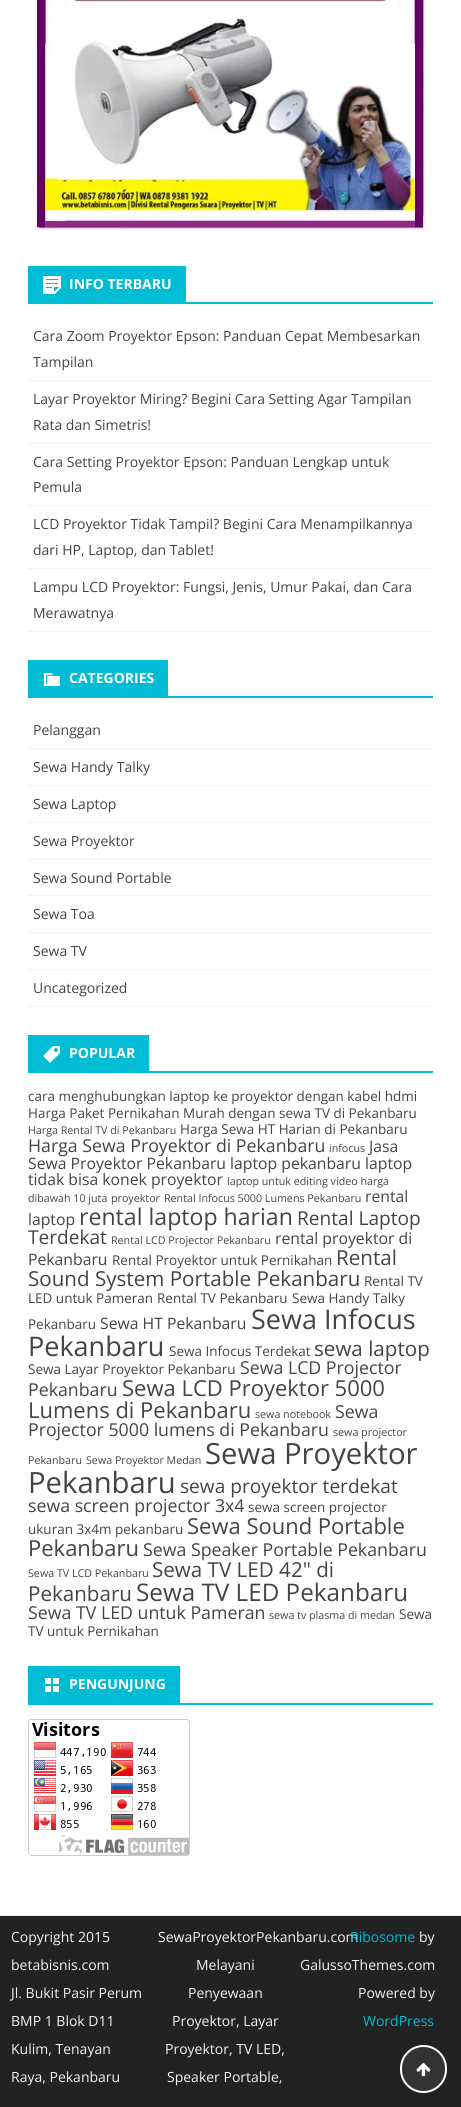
#include <cairo.h>
#include <math.h>
#include <stddef.h>

typedef struct { double x, y; const char *s; } line_t;

static void ink(cairo_t *ctx, unsigned color) {
    cairo_set_source_rgb(ctx, (color >> 16) / 255.0, (color >> 8 & 255) / 255.0, (color & 255) / 255.0);
}

static void round_path(cairo_t *ctx, double x, double y, double w, double h, double r) {
    cairo_new_sub_path(ctx);
    cairo_arc(ctx, x + w - r, y + h - r, r, 0, M_PI / 2);
    cairo_arc(ctx, x + r, y + h - r, r, M_PI / 2, M_PI);
    cairo_arc(ctx, x + r, y + r, r, M_PI, 1.5 * M_PI);
    cairo_arc(ctx, x + w - r, y + r, r, 1.5 * M_PI, 2 * M_PI);
    cairo_close_path(ctx);
}

static void paste(cairo_t *ctx, const char *path, double x, double y, double w, double h) {
    cairo_surface_t *image = cairo_image_surface_create_from_png(path);
    cairo_save(ctx);
    cairo_set_source_surface(ctx, image, x, y);
    cairo_rectangle(ctx, x, y, w, h);
    cairo_fill(ctx);
    cairo_restore(ctx);
    cairo_surface_destroy(image);
}

int main(void) {
    cairo_surface_t *surface = cairo_image_surface_create(CAIRO_FORMAT_RGB24, 461, 2107);
    cairo_t *ctx = cairo_create(surface);
    cairo_font_options_t *options = cairo_font_options_create();
    cairo_font_options_set_hint_metrics(options, CAIRO_HINT_METRICS_OFF);
    cairo_font_options_set_hint_style(options, CAIRO_HINT_STYLE_NONE);
    cairo_set_font_options(ctx, options);
    cairo_set_miter_limit(ctx, 4);
    ink(ctx, 0xFFFFFF);
    cairo_paint(ctx);
    paste(ctx, "media/1.png", 35, 0, 393, 230);
    ink(ctx, 0x00BCD5);
    cairo_rectangle(ctx, 28, 302, 405, 2);
    cairo_fill(ctx);
    cairo_rectangle(ctx, 28, 266, 158, 36);
    cairo_fill(ctx);
    paste(ctx, "media/2.png", 43, 276, 18, 18);
    cairo_select_font_face(ctx, "Open Sans", CAIRO_FONT_SLANT_NORMAL, CAIRO_FONT_WEIGHT_BOLD);
    cairo_set_font_size(ctx, 14);
    ink(ctx, 0xFFFFFF);
    cairo_move_to(ctx, 69, 289);
    cairo_show_text(ctx, "INFO TERBARU");
    ink(ctx, 0xF2F2F2);
    cairo_rectangle(ctx, 28, 380, 405, 1);
    cairo_fill(ctx);
    cairo_select_font_face(ctx, "Open Sans", CAIRO_FONT_SLANT_NORMAL, CAIRO_FONT_WEIGHT_NORMAL);
    ink(ctx, 0x444444);
    cairo_move_to(ctx, 33, 341);
    cairo_show_text(ctx, "Cara Zoom Proyektor Epson: Panduan Cepat Membesarkan");
    cairo_move_to(ctx, 33, 367);
    cairo_show_text(ctx, "Tampilan");
    ink(ctx, 0xF2F2F2);
    cairo_rectangle(ctx, 28, 443, 405, 1);
    cairo_fill(ctx);
    ink(ctx, 0x444444);
    cairo_move_to(ctx, 33, 404);
    cairo_show_text(ctx, "Layar Proyektor Miring? Begini Cara Setting Agar Tampilan");
    cairo_move_to(ctx, 33, 430);
    cairo_show_text(ctx, "Rata dan Simetris!");
    ink(ctx, 0xF2F2F2);
    cairo_rectangle(ctx, 28, 505, 405, 1);
    cairo_fill(ctx);
    ink(ctx, 0x444444);
    cairo_move_to(ctx, 33, 467);
    cairo_show_text(ctx, "Cara Setting Proyektor Epson: Panduan Lengkap untuk");
    cairo_move_to(ctx, 33, 492);
    cairo_show_text(ctx, "Pemula");
    ink(ctx, 0xF2F2F2);
    cairo_rectangle(ctx, 28, 568, 405, 1);
    cairo_fill(ctx);
    ink(ctx, 0x444444);
    cairo_move_to(ctx, 33, 529);
    cairo_show_text(ctx, "LCD Proyektor Tidak Tampil? Begini Cara Menampilkannya");
    cairo_move_to(ctx, 33, 555);
    cairo_show_text(ctx, "dari HP, Laptop, dan Tablet!");
    ink(ctx, 0xF2F2F2);
    cairo_rectangle(ctx, 28, 631, 405, 1);
    cairo_fill(ctx);
    ink(ctx, 0x444444);
    cairo_move_to(ctx, 33, 592);
    cairo_show_text(ctx, "Lampu LCD Proyektor: Fungsi, Jenis, Umur Pakai, dan Cara");
    cairo_move_to(ctx, 33, 618);
    cairo_show_text(ctx, "Merawatnya");
    ink(ctx, 0x00BCD5);
    cairo_rectangle(ctx, 28, 696, 405, 2);
    cairo_fill(ctx);
    cairo_rectangle(ctx, 28, 660, 140, 36);
    cairo_fill(ctx);
    paste(ctx, "media/3.png", 44, 673, 16, 13);
    cairo_select_font_face(ctx, "Open Sans", CAIRO_FONT_SLANT_NORMAL, CAIRO_FONT_WEIGHT_BOLD);
    ink(ctx, 0xFFFFFF);
    cairo_move_to(ctx, 69, 683);
    cairo_show_text(ctx, "CATEGORIES");
    ink(ctx, 0xF2F2F2);
    cairo_rectangle(ctx, 28, 748, 405, 1);
    cairo_fill(ctx);
    cairo_select_font_face(ctx, "Open Sans", CAIRO_FONT_SLANT_NORMAL, CAIRO_FONT_WEIGHT_NORMAL);
    ink(ctx, 0x444444);
    cairo_move_to(ctx, 33, 735);
    cairo_show_text(ctx, "Pelanggan");
    ink(ctx, 0xF2F2F2);
    cairo_rectangle(ctx, 28, 785, 405, 1);
    cairo_fill(ctx);
    ink(ctx, 0x444444);
    cairo_move_to(ctx, 33, 772);
    cairo_show_text(ctx, "Sewa Handy Talky");
    ink(ctx, 0xF2F2F2);
    cairo_rectangle(ctx, 28, 822, 405, 1);
    cairo_fill(ctx);
    ink(ctx, 0x444444);
    cairo_move_to(ctx, 33, 809);
    cairo_show_text(ctx, "Sewa Laptop");
    ink(ctx, 0xF2F2F2);
    cairo_rectangle(ctx, 28, 859, 405, 1);
    cairo_fill(ctx);
    ink(ctx, 0x444444);
    cairo_move_to(ctx, 33, 846);
    cairo_show_text(ctx, "Sewa Proyektor");
    ink(ctx, 0xF2F2F2);
    cairo_rectangle(ctx, 28, 895, 405, 1);
    cairo_fill(ctx);
    ink(ctx, 0x444444);
    cairo_move_to(ctx, 33, 883);
    cairo_show_text(ctx, "Sewa Sound Portable");
    ink(ctx, 0xF2F2F2);
    cairo_rectangle(ctx, 28, 932, 405, 1);
    cairo_fill(ctx);
    ink(ctx, 0x444444);
    cairo_move_to(ctx, 33, 919);
    cairo_show_text(ctx, "Sewa Toa");
    ink(ctx, 0xF2F2F2);
    cairo_rectangle(ctx, 28, 969, 405, 1);
    cairo_fill(ctx);
    ink(ctx, 0x444444);
    cairo_move_to(ctx, 33, 956);
    cairo_show_text(ctx, "Sewa TV");
    ink(ctx, 0xF2F2F2);
    cairo_rectangle(ctx, 28, 1006, 405, 1);
    cairo_fill(ctx);
    ink(ctx, 0x444444);
    cairo_move_to(ctx, 33, 993);
    cairo_show_text(ctx, "Uncategorized");
    ink(ctx, 0x00BCD5);
    cairo_rectangle(ctx, 28, 1071, 405, 2);
    cairo_fill(ctx);
    cairo_rectangle(ctx, 28, 1035, 121, 36);
    cairo_fill(ctx);
    paste(ctx, "media/4.png", 43, 1046, 17, 17);
    cairo_select_font_face(ctx, "Open Sans", CAIRO_FONT_SLANT_NORMAL, CAIRO_FONT_WEIGHT_BOLD);
    ink(ctx, 0xFFFFFF);
    cairo_move_to(ctx, 69, 1058);
    cairo_show_text(ctx, "POPULAR");
    cairo_select_font_face(ctx, "Open Sans", CAIRO_FONT_SLANT_NORMAL, CAIRO_FONT_WEIGHT_NORMAL);
    cairo_set_font_size(ctx, 13.5);
    ink(ctx, 0x444444);
    cairo_move_to(ctx, 28, 1101);
    cairo_show_text(ctx, "cara menghubungkan laptop ke proyektor dengan kabel hdmi");
    cairo_move_to(ctx, 28, 1118);
    cairo_show_text(ctx, "Harga Paket Pernikahan Murah dengan sewa TV di Pekanbaru");
    cairo_set_font_size(ctx, 10.7);
    cairo_move_to(ctx, 28, 1134);
    cairo_show_text(ctx, "Harga Rental TV di Pekanbaru");
    cairo_set_font_size(ctx, 13.5);
    cairo_move_to(ctx, 180, 1134);
    cairo_show_text(ctx, "Harga Sewa HT Harian di Pekanbaru");
    cairo_set_font_size(ctx, 17.75);
    cairo_move_to(ctx, 28, 1152);
    cairo_show_text(ctx, "Harga Sewa Proyektor di Pekanbaru");
    cairo_set_font_size(ctx, 10.7);
    cairo_move_to(ctx, 329, 1152);
    cairo_show_text(ctx, "infocus");
    cairo_set_font_size(ctx, 15.75);
    {
        static const line_t items[] = {
            {369, 1152, "Jasa"},
            {28, 1169, "Sewa Proyektor Pekanbaru laptop pekanbaru laptop"},
            {28, 1185, "tidak bisa konek proyektor"},
        };
        for (size_t i = 0; i < sizeof items / sizeof *items; i++) {
            cairo_move_to(ctx, items[i].x, items[i].y);
            cairo_show_text(ctx, items[i].s);
        }
    }
    cairo_set_font_size(ctx, 10.7);
    {
        static const line_t items[] = {
            {227, 1185, "laptop untuk editing video harga"},
            {28, 1202, "dibawah 10 juta"},
            {111, 1202, "proyektor"},
            {164, 1202, "Rental Infocus 5000 Lumens Pekanbaru"},
        };
        for (size_t i = 0; i < sizeof items / sizeof *items; i++) {
            cairo_move_to(ctx, items[i].x, items[i].y);
            cairo_show_text(ctx, items[i].s);
        }
    }
    cairo_set_font_size(ctx, 15.75);
    cairo_move_to(ctx, 365, 1202);
    cairo_show_text(ctx, "rental");
    cairo_move_to(ctx, 28, 1225);
    cairo_show_text(ctx, "laptop");
    cairo_set_font_size(ctx, 23.1);
    cairo_move_to(ctx, 79, 1225);
    cairo_show_text(ctx, "rental laptop harian");
    cairo_set_font_size(ctx, 19.1);
    cairo_move_to(ctx, 297, 1225);
    cairo_show_text(ctx, "Rental Laptop");
    cairo_move_to(ctx, 28, 1244);
    cairo_show_text(ctx, "Terdekat");
    cairo_set_font_size(ctx, 10.7);
    cairo_move_to(ctx, 111, 1244);
    cairo_show_text(ctx, "Rental LCD Projector Pekanbaru");
    cairo_set_font_size(ctx, 15.75);
    cairo_move_to(ctx, 275, 1244);
    cairo_show_text(ctx, "rental proyektor di");
    cairo_move_to(ctx, 28, 1265);
    cairo_show_text(ctx, "Pekanbaru");
    cairo_set_font_size(ctx, 13.5);
    cairo_move_to(ctx, 112, 1265);
    cairo_show_text(ctx, "Rental Proyektor untuk Pernikahan");
    cairo_set_font_size(ctx, 20.6);
    cairo_move_to(ctx, 336, 1265);
    cairo_show_text(ctx, "Rental");
    cairo_move_to(ctx, 28, 1286);
    cairo_show_text(ctx, "Sound System Portable Pekanbaru");
    cairo_set_font_size(ctx, 13.5);
    {
        static const line_t items[] = {
            {364, 1286, "Rental TV"},
            {28, 1303, "LED untuk Pameran"},
            {157, 1303, "Rental TV Pekanbaru"},
            {292, 1303, "Sewa Handy Talky"},
            {28, 1329, "Pekanbaru"},
        };
        for (size_t i = 0; i < sizeof items / sizeof *items; i++) {
            cairo_move_to(ctx, items[i].x, items[i].y);
            cairo_show_text(ctx, items[i].s);
        }
    }
    cairo_set_font_size(ctx, 15.75);
    cairo_move_to(ctx, 100, 1329);
    cairo_show_text(ctx, "Sewa HT Pekanbaru");
    cairo_set_font_size(ctx, 27);
    cairo_move_to(ctx, 251, 1329);
    cairo_show_text(ctx, "Sewa Infocus");
    cairo_move_to(ctx, 28, 1356);
    cairo_show_text(ctx, "Pekanbaru");
    cairo_set_font_size(ctx, 13.5);
    cairo_move_to(ctx, 169, 1356);
    cairo_show_text(ctx, "Sewa Infocus Terdekat");
    cairo_set_font_size(ctx, 20.6);
    cairo_move_to(ctx, 314, 1356);
    cairo_show_text(ctx, "sewa laptop");
    cairo_set_font_size(ctx, 13.5);
    cairo_move_to(ctx, 28, 1374);
    cairo_show_text(ctx, "Sewa Layar Proyektor Pekanbaru");
    cairo_set_font_size(ctx, 17.75);
    cairo_move_to(ctx, 240, 1374);
    cairo_show_text(ctx, "Sewa LCD Projector");
    cairo_move_to(ctx, 28, 1396);
    cairo_show_text(ctx, "Pekanbaru");
    cairo_set_font_size(ctx, 22);
    cairo_move_to(ctx, 122, 1396);
    cairo_show_text(ctx, "Sewa LCD Proyektor 5000");
    cairo_move_to(ctx, 28, 1418);
    cairo_show_text(ctx, "Lumens di Pekanbaru");
    cairo_set_font_size(ctx, 10.7);
    cairo_move_to(ctx, 255, 1418);
    cairo_show_text(ctx, "sewa notebook");
    cairo_set_font_size(ctx, 17.75);
    cairo_move_to(ctx, 335, 1418);
    cairo_show_text(ctx, "Sewa");
    cairo_move_to(ctx, 28, 1436);
    cairo_show_text(ctx, "Projector 5000 lumens di Pekanbaru");
    cairo_set_font_size(ctx, 10.7);
    {
        static const line_t items[] = {
            {333, 1436, "sewa projector"},
            {28, 1464, "Pekanbaru"},
            {86, 1464, "Sewa Proyektor Medan"},
        };
        for (size_t i = 0; i < sizeof items / sizeof *items; i++) {
            cairo_move_to(ctx, items[i].x, items[i].y);
            cairo_show_text(ctx, items[i].s);
        }
    }
    cairo_set_font_size(ctx, 29.25);
    cairo_move_to(ctx, 205, 1464);
    cairo_show_text(ctx, "Sewa Proyektor");
    cairo_move_to(ctx, 28, 1493);
    cairo_show_text(ctx, "Pekanbaru");
    cairo_set_font_size(ctx, 19.1);
    cairo_move_to(ctx, 180, 1493);
    cairo_show_text(ctx, "sewa proyektor terdekat");
    cairo_set_font_size(ctx, 17.75);
    cairo_move_to(ctx, 28, 1512);
    cairo_show_text(ctx, "sewa screen projector 3x4");
    cairo_set_font_size(ctx, 13.5);
    cairo_move_to(ctx, 248, 1512);
    cairo_show_text(ctx, "sewa screen projector");
    cairo_move_to(ctx, 28, 1534);
    cairo_show_text(ctx, "ukuran 3x4m pekanbaru");
    cairo_set_font_size(ctx, 22);
    cairo_move_to(ctx, 187, 1534);
    cairo_show_text(ctx, "Sewa Sound Portable");
    cairo_move_to(ctx, 28, 1556);
    cairo_show_text(ctx, "Pekanbaru");
    cairo_set_font_size(ctx, 17.75);
    cairo_move_to(ctx, 143, 1556);
    cairo_show_text(ctx, "Sewa Speaker Portable Pekanbaru");
    cairo_set_font_size(ctx, 10.7);
    cairo_move_to(ctx, 28, 1577);
    cairo_show_text(ctx, "Sewa TV LCD Pekanbaru");
    cairo_set_font_size(ctx, 20.6);
    cairo_move_to(ctx, 152, 1577);
    cairo_show_text(ctx, "Sewa TV LED 42\" di");
    cairo_move_to(ctx, 28, 1601);
    cairo_show_text(ctx, "Pekanbaru");
    cairo_set_font_size(ctx, 24.25);
    cairo_move_to(ctx, 136, 1601);
    cairo_show_text(ctx, "Sewa TV LED Pekanbaru");
    cairo_set_font_size(ctx, 17.75);
    cairo_move_to(ctx, 28, 1619);
    cairo_show_text(ctx, "Sewa TV LED untuk Pameran");
    cairo_set_font_size(ctx, 10.7);
    cairo_move_to(ctx, 269, 1619);
    cairo_show_text(ctx, "sewa tv plasma di medan");
    cairo_set_font_size(ctx, 13.5);
    cairo_move_to(ctx, 399, 1619);
    cairo_show_text(ctx, "Sewa");
    cairo_move_to(ctx, 28, 1636);
    cairo_show_text(ctx, "TV untuk Pernikahan");
    ink(ctx, 0x00BCD5);
    cairo_rectangle(ctx, 28, 1703, 405, 2);
    cairo_fill(ctx);
    cairo_rectangle(ctx, 28, 1666, 152, 37);
    cairo_fill(ctx);
    paste(ctx, "media/5.png", 45, 1678, 14, 14);
    cairo_select_font_face(ctx, "Open Sans", CAIRO_FONT_SLANT_NORMAL, CAIRO_FONT_WEIGHT_BOLD);
    cairo_set_font_size(ctx, 14);
    ink(ctx, 0xFFFFFF);
    cairo_move_to(ctx, 69, 1689);
    cairo_show_text(ctx, "PENGUNJUNG");
    paste(ctx, "media/6.png", 28, 1719, 162, 137);
    ink(ctx, 0x222222);
    cairo_rectangle(ctx, 0, 1916, 461, 191);
    cairo_fill(ctx);
    ink(ctx, 0xEDEDED);
    cairo_rectangle(ctx, 0, 1915, 461, 1);
    cairo_fill(ctx);
    cairo_select_font_face(ctx, "Open Sans", CAIRO_FONT_SLANT_NORMAL, CAIRO_FONT_WEIGHT_NORMAL);
    ink(ctx, 0xF2F2F2);
    {
        static const line_t items[] = {
            {11, 1942, "Copyright 2015"},
            {11, 1970, "betabisnis.com"},
            {11, 1998, "Jl. Bukit Pasir Perum"},
            {11, 2026, "BMP 1 Blok D11"},
            {11, 2054, "Kulim, Tenayan"},
            {11, 2082, "Raya, Pekanbaru"},
            {158, 1942, "SewaProyektorPekanbaru.com"},
            {196, 1970, "Melayani"},
            {188, 1998, "Penyewaan"},
            {172, 2026, "Proyektor, Layar"},
            {165, 2054, "Proyektor, TV LED,"},
            {167, 2082, "Speaker Portable,"},
        };
        for (size_t i = 0; i < sizeof items / sizeof *items; i++) {
            cairo_move_to(ctx, items[i].x, items[i].y);
            cairo_show_text(ctx, items[i].s);
        }
    }
    ink(ctx, 0x00BCD5);
    cairo_move_to(ctx, 350, 1942);
    cairo_show_text(ctx, "Ribosome");
    ink(ctx, 0xF2F2F2);
    {
        static const line_t items[] = {
            {419, 1942, "by"},
            {300, 1970, "GalussoThemes.com"},
            {358, 1998, "Powered by"},
        };
        for (size_t i = 0; i < sizeof items / sizeof *items; i++) {
            cairo_move_to(ctx, items[i].x, items[i].y);
            cairo_show_text(ctx, items[i].s);
        }
    }
    ink(ctx, 0x00BCD5);
    cairo_move_to(ctx, 363, 2026);
    cairo_show_text(ctx, "WordPress");
    ink(ctx, 0x333333);
    round_path(ctx, 401, 2046, 45, 46, 22.5);
    cairo_fill_preserve(ctx);
    ink(ctx, 0xFFFFFF);
    cairo_stroke(ctx);
    paste(ctx, "media/7.png", 416, 2063, 15, 14);
    cairo_surface_write_to_png(surface, "image.png");
    cairo_font_options_destroy(options);
    cairo_destroy(ctx);
    cairo_surface_destroy(surface);
    return 0;
}
